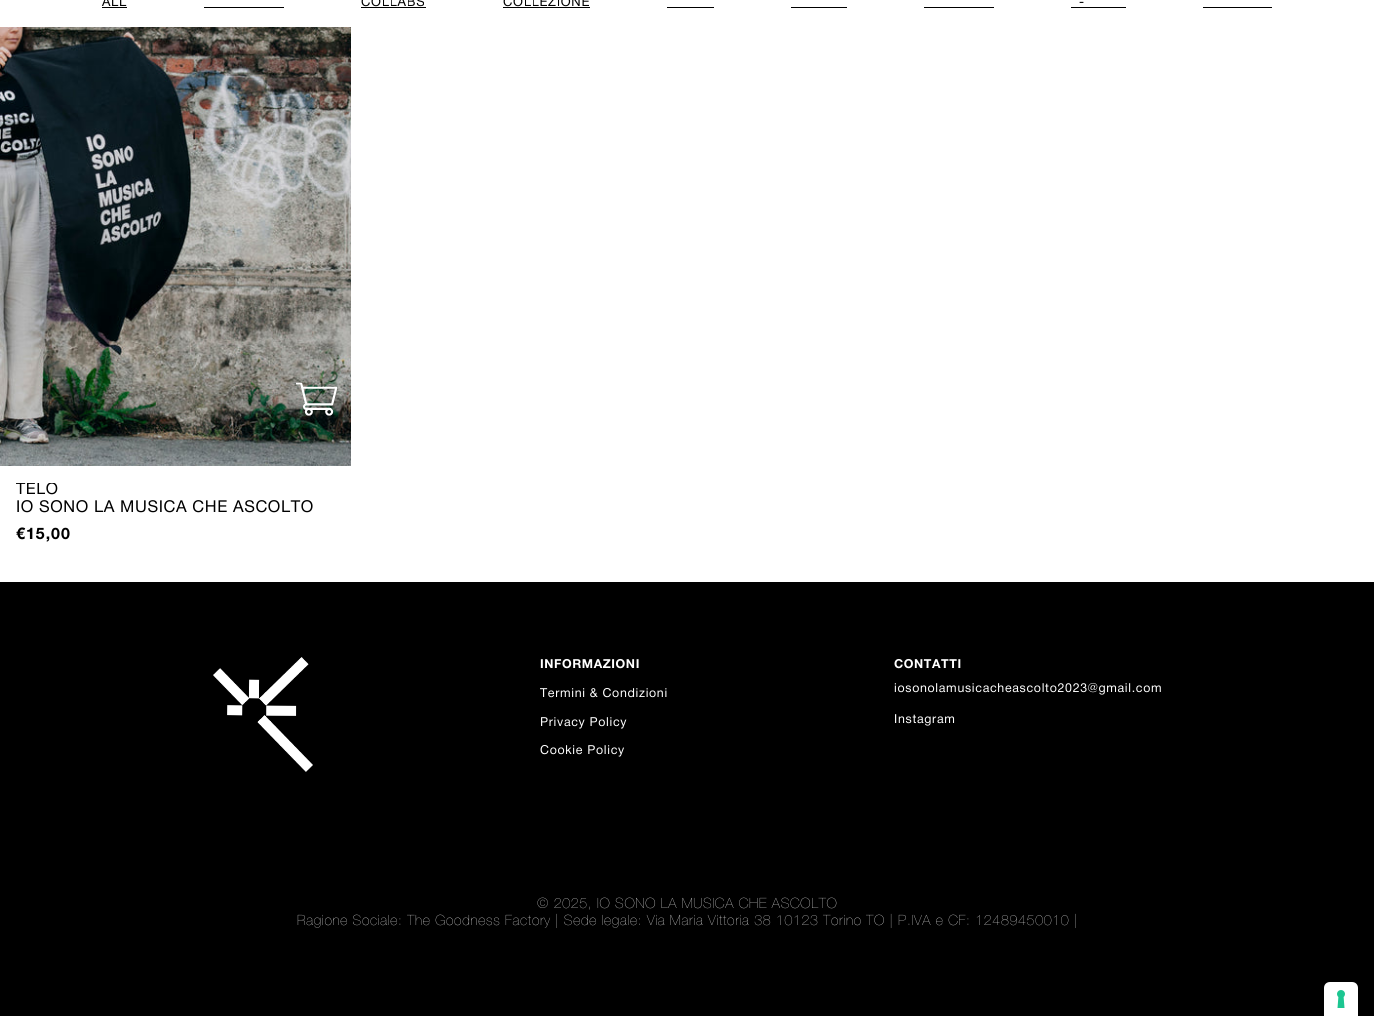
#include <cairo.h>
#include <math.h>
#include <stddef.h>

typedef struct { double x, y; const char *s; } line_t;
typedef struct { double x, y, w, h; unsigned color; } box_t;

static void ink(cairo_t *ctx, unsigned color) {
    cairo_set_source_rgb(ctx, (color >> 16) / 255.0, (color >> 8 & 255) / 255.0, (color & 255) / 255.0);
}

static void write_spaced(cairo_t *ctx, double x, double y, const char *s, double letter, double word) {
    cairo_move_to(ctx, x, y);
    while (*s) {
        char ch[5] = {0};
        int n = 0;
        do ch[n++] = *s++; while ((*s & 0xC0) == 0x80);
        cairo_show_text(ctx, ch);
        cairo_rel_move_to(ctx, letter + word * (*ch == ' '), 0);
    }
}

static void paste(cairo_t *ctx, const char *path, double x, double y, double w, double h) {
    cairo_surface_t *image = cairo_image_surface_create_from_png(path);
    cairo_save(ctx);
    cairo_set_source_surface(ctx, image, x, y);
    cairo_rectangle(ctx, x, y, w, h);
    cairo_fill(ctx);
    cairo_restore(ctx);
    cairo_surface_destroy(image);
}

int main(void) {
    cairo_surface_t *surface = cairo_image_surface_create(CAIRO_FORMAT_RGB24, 1374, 1016);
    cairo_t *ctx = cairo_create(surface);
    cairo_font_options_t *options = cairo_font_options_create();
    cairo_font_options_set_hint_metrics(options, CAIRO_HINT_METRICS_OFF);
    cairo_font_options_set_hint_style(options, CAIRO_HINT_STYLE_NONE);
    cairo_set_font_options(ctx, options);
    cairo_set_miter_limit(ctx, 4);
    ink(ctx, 0x000000);
    cairo_paint(ctx);
    ink(ctx, 0xFFFFFF);
    cairo_rectangle(ctx, 0, 0, 1374, 582);
    cairo_fill(ctx);
    cairo_select_font_face(ctx, "Helvetica Neue", CAIRO_FONT_SLANT_NORMAL, CAIRO_FONT_WEIGHT_NORMAL);
    cairo_set_font_size(ctx, 13);
    ink(ctx, 0x000000);
    write_spaced(ctx, 102, 6, "ALL", 0.69, 0);
    cairo_rectangle(ctx, 102, 7, 25, 1);
    cairo_fill(ctx);
    write_spaced(ctx, 361, 6, "COLLABS", 0.69, 0);
    cairo_rectangle(ctx, 361, 7, 65, 1);
    cairo_fill(ctx);
    write_spaced(ctx, 503, 6, "COLLEZIONE", 0.69, 0);
    cairo_rectangle(ctx, 503, 7, 87, 1);
    cairo_fill(ctx);
    write_spaced(ctx, 1079, 6, "-", 0.69, 0);
    {
        static const box_t items[] = {
            {1071, 7, 55, 1, 0x000000},
            {204, 7, 80, 1, 0x000000},
            {667, 7, 47, 1, 0x000000},
            {791, 7, 56, 1, 0x000000},
            {924, 7, 70, 1, 0x000000},
            {1203, 7, 69, 1, 0x000000},
        };
        for (size_t i = 0; i < sizeof items / sizeof *items; i++) {
            ink(ctx, items[i].color);
            cairo_rectangle(ctx, items[i].x, items[i].y, items[i].w, items[i].h);
            cairo_fill(ctx);
        }
    }
    paste(ctx, "media/1.png", 0, 27, 351, 439);
    paste(ctx, "media/2.png", 296, 382, 42, 34);
    cairo_save(ctx);
    cairo_rectangle(ctx, 16, 483, 322, 62);
    cairo_clip(ctx);
    cairo_set_font_size(ctx, 16);
    write_spaced(ctx, 16, 494, "TELO", 0.6, 0);
    cairo_restore(ctx);
    cairo_set_font_size(ctx, 16.4);
    write_spaced(ctx, 16, 512, "IO SONO LA MUSICA CHE ASCOLTO", 0.6, 0);
    cairo_select_font_face(ctx, "Helvetica Neue", CAIRO_FONT_SLANT_NORMAL, CAIRO_FONT_WEIGHT_BOLD);
    cairo_set_font_size(ctx, 16);
    write_spaced(ctx, 16, 539, "€15,00", 1, 0);
    paste(ctx, "media/3.png", 213, 657, 100, 115);
    cairo_set_font_size(ctx, 12.4);
    ink(ctx, 0xFFFFFF);
    write_spaced(ctx, 540, 668, "INFORMAZIONI", 0.6, 0);
    cairo_select_font_face(ctx, "Helvetica Neue", CAIRO_FONT_SLANT_NORMAL, CAIRO_FONT_WEIGHT_NORMAL);
    {
        static const line_t items[] = {
            {540, 697, "Termini & Condizioni"},
            {540, 726, "Privacy Policy"},
            {540, 754, "Cookie Policy"},
        };
        for (size_t i = 0; i < sizeof items / sizeof *items; i++) {
            write_spaced(ctx, items[i].x, items[i].y, items[i].s, 0.69, 0);
        }
    }
    cairo_select_font_face(ctx, "Helvetica Neue", CAIRO_FONT_SLANT_NORMAL, CAIRO_FONT_WEIGHT_BOLD);
    write_spaced(ctx, 894, 668, "CONTATTI", 0.6, 0);
    cairo_select_font_face(ctx, "Helvetica Neue", CAIRO_FONT_SLANT_NORMAL, CAIRO_FONT_WEIGHT_NORMAL);
    write_spaced(ctx, 894, 692, "iosonolamusicacheascolto2023@gmail.com", 0.69, 0);
    write_spaced(ctx, 894, 723, "Instagram", 0.69, 0);
    cairo_select_font_face(ctx, "Helvetica Neue ExtraLight", CAIRO_FONT_SLANT_NORMAL, CAIRO_FONT_WEIGHT_NORMAL);
    cairo_set_font_size(ctx, 14.15);
    write_spaced(ctx, 537, 908, "© 2025, IO SONO LA MUSICA CHE ASCOLTO", 0.69, 0);
    write_spaced(ctx, 297, 925, "Ragione Sociale: The Goodness Factory | Sede legale: Via Maria Vittoria 38 10123 Torino TO | P.IVA e CF: 12489450010 |", 0.69, 0);
    cairo_new_path(ctx);
    cairo_move_to(ctx, 1330, 982);
    cairo_line_to(ctx, 1352, 982);
    cairo_curve_to(ctx, 1355.5, 982, 1358, 984.5, 1358, 988);
    cairo_line_to(ctx, 1358, 1016);
    cairo_line_to(ctx, 1324, 1016);
    cairo_line_to(ctx, 1324, 988);
    cairo_curve_to(ctx, 1324, 984.5, 1326.5, 982, 1330, 982);
    cairo_close_path(ctx);
    cairo_fill(ctx);
    paste(ctx, "media/4.png", 1337, 990, 8, 18);
    cairo_surface_write_to_png(surface, "image.png");
    cairo_font_options_destroy(options);
    cairo_destroy(ctx);
    cairo_surface_destroy(surface);
    return 0;
}
